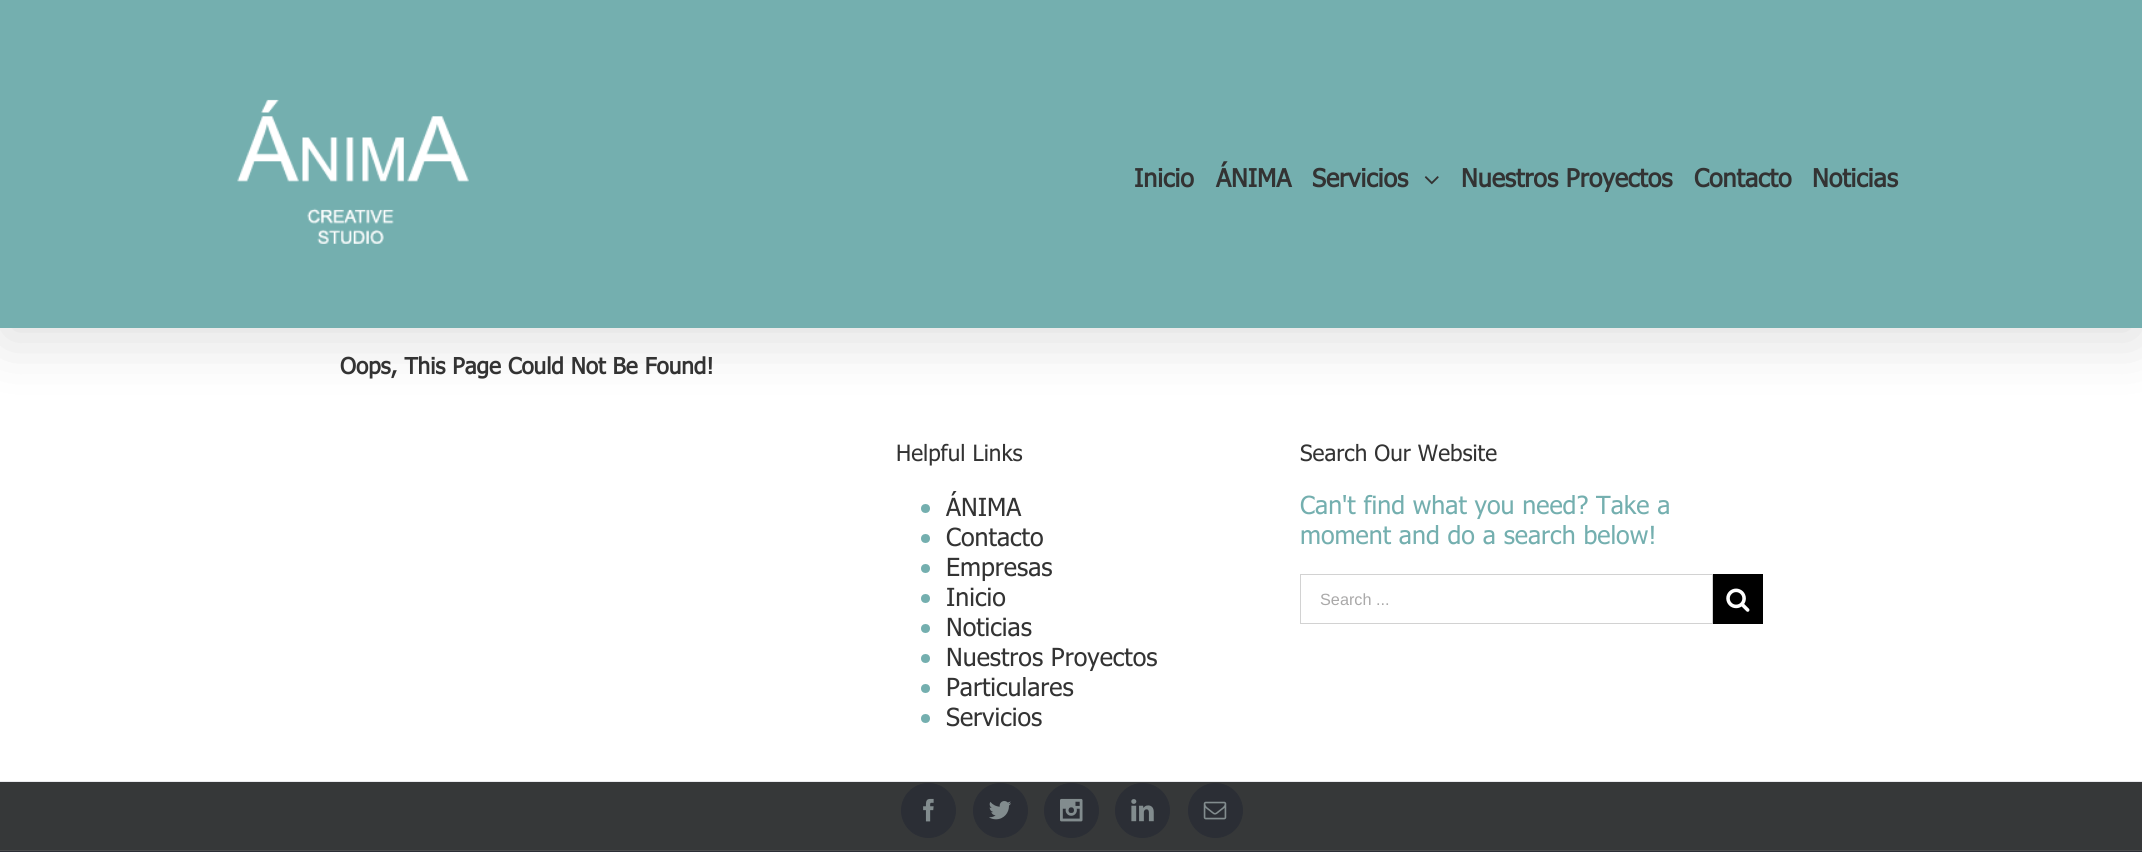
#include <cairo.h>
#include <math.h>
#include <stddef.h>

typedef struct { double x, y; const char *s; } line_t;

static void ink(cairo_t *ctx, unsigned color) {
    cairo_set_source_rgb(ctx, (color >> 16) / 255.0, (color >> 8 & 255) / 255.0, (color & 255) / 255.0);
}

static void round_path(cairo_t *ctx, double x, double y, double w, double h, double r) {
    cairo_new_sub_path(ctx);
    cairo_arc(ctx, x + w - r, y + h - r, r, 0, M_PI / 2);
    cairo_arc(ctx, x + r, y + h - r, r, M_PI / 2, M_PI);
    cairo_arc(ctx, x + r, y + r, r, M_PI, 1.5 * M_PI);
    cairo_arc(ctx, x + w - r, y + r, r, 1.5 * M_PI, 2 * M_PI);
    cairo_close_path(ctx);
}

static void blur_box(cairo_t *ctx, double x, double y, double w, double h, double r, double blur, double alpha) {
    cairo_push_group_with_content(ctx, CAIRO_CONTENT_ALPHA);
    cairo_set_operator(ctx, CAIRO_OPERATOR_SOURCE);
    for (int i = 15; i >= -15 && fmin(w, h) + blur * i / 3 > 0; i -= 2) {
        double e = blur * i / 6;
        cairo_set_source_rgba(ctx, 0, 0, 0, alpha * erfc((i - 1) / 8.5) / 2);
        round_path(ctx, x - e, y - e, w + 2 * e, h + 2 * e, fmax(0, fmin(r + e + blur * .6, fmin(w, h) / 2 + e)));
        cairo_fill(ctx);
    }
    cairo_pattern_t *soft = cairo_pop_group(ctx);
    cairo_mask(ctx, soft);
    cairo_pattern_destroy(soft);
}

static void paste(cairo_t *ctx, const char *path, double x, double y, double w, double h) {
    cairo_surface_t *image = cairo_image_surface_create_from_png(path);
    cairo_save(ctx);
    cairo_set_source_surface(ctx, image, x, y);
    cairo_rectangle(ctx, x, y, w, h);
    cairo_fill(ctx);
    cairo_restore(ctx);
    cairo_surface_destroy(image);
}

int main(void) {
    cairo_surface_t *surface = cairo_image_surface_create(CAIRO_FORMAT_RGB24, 2142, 852);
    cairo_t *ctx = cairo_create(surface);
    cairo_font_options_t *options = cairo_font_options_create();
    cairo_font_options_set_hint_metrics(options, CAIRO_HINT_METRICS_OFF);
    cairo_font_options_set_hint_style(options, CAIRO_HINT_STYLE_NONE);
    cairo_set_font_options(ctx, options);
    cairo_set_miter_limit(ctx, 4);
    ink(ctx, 0xFFFFFF);
    cairo_paint(ctx);
    ink(ctx, 0x000000);
    blur_box(ctx, 3, 15, 2137, 323, 0, 31, 0.14);
    ink(ctx, 0x74AFAF);
    cairo_rectangle(ctx, 0, 0, 2142, 328);
    cairo_fill(ctx);
    paste(ctx, "media/1.png", 237, 99, 232, 145);
    cairo_select_font_face(ctx, "Tahoma", CAIRO_FONT_SLANT_NORMAL, CAIRO_FONT_WEIGHT_BOLD);
    cairo_set_font_size(ctx, 25);
    ink(ctx, 0x333333);
    {
        static const line_t items[] = {
            {1134, 187, "Inicio"},
            {1216, 187, "ÁNIMA"},
            {1312, 187, "Servicios"},
        };
        for (size_t i = 0; i < sizeof items / sizeof *items; i++) {
            cairo_move_to(ctx, items[i].x, items[i].y);
            cairo_show_text(ctx, items[i].s);
        }
    }
    paste(ctx, "media/2.png", 1424, 176, 15, 9);
    {
        static const line_t items[] = {
            {1461, 187, "Nuestros Proyectos"},
            {1694, 187, "Contacto"},
            {1812, 187, "Noticias"},
        };
        for (size_t i = 0; i < sizeof items / sizeof *items; i++) {
            cairo_move_to(ctx, items[i].x, items[i].y);
            cairo_show_text(ctx, items[i].s);
        }
    }
    cairo_set_font_size(ctx, 22.5);
    cairo_move_to(ctx, 340, 374);
    cairo_show_text(ctx, "Oops, This Page Could Not Be Found!");
    cairo_select_font_face(ctx, "Tahoma", CAIRO_FONT_SLANT_NORMAL, CAIRO_FONT_WEIGHT_NORMAL);
    cairo_move_to(ctx, 896, 461);
    cairo_show_text(ctx, "Helpful Links");
    ink(ctx, 0x74AFAF);
    cairo_new_path(ctx);
    cairo_arc(ctx, 925.5, 508.5, 4.5, 0, 2 * M_PI);
    cairo_fill(ctx);
    cairo_set_font_size(ctx, 25);
    ink(ctx, 0x333333);
    cairo_move_to(ctx, 946, 516);
    cairo_show_text(ctx, "ÁNIMA");
    ink(ctx, 0x74AFAF);
    cairo_new_path(ctx);
    cairo_arc(ctx, 925.5, 538.5, 4.5, 0, 2 * M_PI);
    cairo_fill(ctx);
    ink(ctx, 0x333333);
    cairo_move_to(ctx, 946, 546);
    cairo_show_text(ctx, "Contacto");
    ink(ctx, 0x74AFAF);
    cairo_new_path(ctx);
    cairo_arc(ctx, 925.5, 568.5, 4.5, 0, 2 * M_PI);
    cairo_fill(ctx);
    ink(ctx, 0x333333);
    cairo_move_to(ctx, 946, 576);
    cairo_show_text(ctx, "Empresas");
    ink(ctx, 0x74AFAF);
    cairo_new_path(ctx);
    cairo_arc(ctx, 925.5, 598.5, 4.5, 0, 2 * M_PI);
    cairo_fill(ctx);
    ink(ctx, 0x333333);
    cairo_move_to(ctx, 946, 606);
    cairo_show_text(ctx, "Inicio");
    ink(ctx, 0x74AFAF);
    cairo_new_path(ctx);
    cairo_arc(ctx, 925.5, 628.5, 4.5, 0, 2 * M_PI);
    cairo_fill(ctx);
    ink(ctx, 0x333333);
    cairo_move_to(ctx, 946, 636);
    cairo_show_text(ctx, "Noticias");
    ink(ctx, 0x74AFAF);
    cairo_new_path(ctx);
    cairo_arc(ctx, 925.5, 658.5, 4.5, 0, 2 * M_PI);
    cairo_fill(ctx);
    ink(ctx, 0x333333);
    cairo_move_to(ctx, 946, 666);
    cairo_show_text(ctx, "Nuestros Proyectos");
    ink(ctx, 0x74AFAF);
    cairo_new_path(ctx);
    cairo_arc(ctx, 925.5, 688.5, 4.5, 0, 2 * M_PI);
    cairo_fill(ctx);
    ink(ctx, 0x333333);
    cairo_move_to(ctx, 946, 696);
    cairo_show_text(ctx, "Particulares");
    ink(ctx, 0x74AFAF);
    cairo_new_path(ctx);
    cairo_arc(ctx, 925.5, 718.5, 4.5, 0, 2 * M_PI);
    cairo_fill(ctx);
    ink(ctx, 0x333333);
    cairo_move_to(ctx, 946, 726);
    cairo_show_text(ctx, "Servicios");
    cairo_set_font_size(ctx, 22.5);
    cairo_move_to(ctx, 1300, 461);
    cairo_show_text(ctx, "Search Our Website");
    cairo_set_font_size(ctx, 25);
    ink(ctx, 0x74AFAF);
    cairo_move_to(ctx, 1300, 514);
    cairo_show_text(ctx, "Can't find what you need? Take a");
    cairo_move_to(ctx, 1300, 544);
    cairo_show_text(ctx, "moment and do a search below!");
    cairo_rectangle(ctx, 1300.5, 574.5, 412, 49);
    ink(ctx, 0xD2D2D2);
    cairo_set_line_width(ctx, 1);
    cairo_stroke(ctx);
    cairo_select_font_face(ctx, "Liberation Sans", CAIRO_FONT_SLANT_NORMAL, CAIRO_FONT_WEIGHT_NORMAL);
    cairo_set_font_size(ctx, 16.25);
    ink(ctx, 0xAAA9A9);
    cairo_move_to(ctx, 1320, 605);
    cairo_show_text(ctx, "Search ...");
    ink(ctx, 0x000000);
    cairo_rectangle(ctx, 1713, 574, 50, 50);
    cairo_fill(ctx);
    paste(ctx, "media/3.png", 1726, 588, 24, 24);
    ink(ctx, 0x363839);
    cairo_rectangle(ctx, 0, 782, 2142, 68);
    cairo_fill(ctx);
    ink(ctx, 0xE9EAEE);
    cairo_rectangle(ctx, 0, 781, 2142, 1);
    cairo_fill(ctx);
    ink(ctx, 0x2B2E35);
    cairo_arc(ctx, 928.5, 810.5, 27, 0, 2 * M_PI);
    cairo_fill_preserve(ctx);
    cairo_stroke(ctx);
    paste(ctx, "media/4.png", 923, 798, 11, 24);
    cairo_arc(ctx, 1000.5, 810.5, 27, 0, 2 * M_PI);
    cairo_fill_preserve(ctx);
    cairo_stroke(ctx);
    paste(ctx, "media/5.png", 989, 801, 22, 19);
    cairo_arc(ctx, 1071.5, 810.5, 27, 0, 2 * M_PI);
    cairo_fill_preserve(ctx);
    cairo_stroke(ctx);
    paste(ctx, "media/6.png", 1060, 798, 23, 24);
    cairo_arc(ctx, 1142.5, 810.5, 27, 0, 2 * M_PI);
    cairo_fill_preserve(ctx);
    cairo_stroke(ctx);
    paste(ctx, "media/7.png", 1131, 799, 23, 23);
    cairo_arc(ctx, 1215.5, 810.5, 27, 0, 2 * M_PI);
    cairo_fill_preserve(ctx);
    cairo_stroke(ctx);
    paste(ctx, "media/8.png", 1203, 801, 24, 19);
    cairo_rectangle(ctx, 0, 851, 2142, 1);
    cairo_fill(ctx);
    ink(ctx, 0x4B4C4D);
    cairo_rectangle(ctx, 0, 850, 2142, 1);
    cairo_fill(ctx);
    cairo_surface_write_to_png(surface, "image.png");
    cairo_font_options_destroy(options);
    cairo_destroy(ctx);
    cairo_surface_destroy(surface);
    return 0;
}
